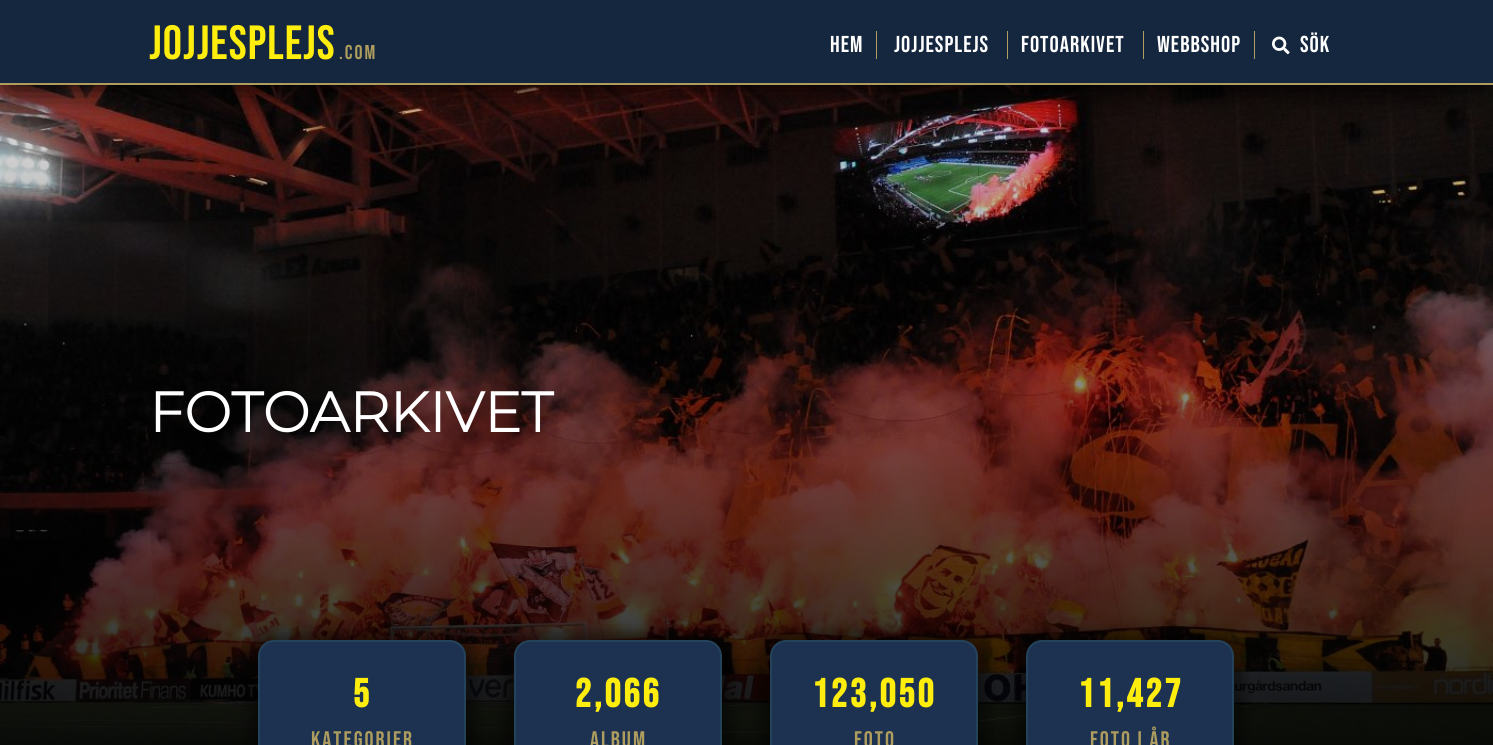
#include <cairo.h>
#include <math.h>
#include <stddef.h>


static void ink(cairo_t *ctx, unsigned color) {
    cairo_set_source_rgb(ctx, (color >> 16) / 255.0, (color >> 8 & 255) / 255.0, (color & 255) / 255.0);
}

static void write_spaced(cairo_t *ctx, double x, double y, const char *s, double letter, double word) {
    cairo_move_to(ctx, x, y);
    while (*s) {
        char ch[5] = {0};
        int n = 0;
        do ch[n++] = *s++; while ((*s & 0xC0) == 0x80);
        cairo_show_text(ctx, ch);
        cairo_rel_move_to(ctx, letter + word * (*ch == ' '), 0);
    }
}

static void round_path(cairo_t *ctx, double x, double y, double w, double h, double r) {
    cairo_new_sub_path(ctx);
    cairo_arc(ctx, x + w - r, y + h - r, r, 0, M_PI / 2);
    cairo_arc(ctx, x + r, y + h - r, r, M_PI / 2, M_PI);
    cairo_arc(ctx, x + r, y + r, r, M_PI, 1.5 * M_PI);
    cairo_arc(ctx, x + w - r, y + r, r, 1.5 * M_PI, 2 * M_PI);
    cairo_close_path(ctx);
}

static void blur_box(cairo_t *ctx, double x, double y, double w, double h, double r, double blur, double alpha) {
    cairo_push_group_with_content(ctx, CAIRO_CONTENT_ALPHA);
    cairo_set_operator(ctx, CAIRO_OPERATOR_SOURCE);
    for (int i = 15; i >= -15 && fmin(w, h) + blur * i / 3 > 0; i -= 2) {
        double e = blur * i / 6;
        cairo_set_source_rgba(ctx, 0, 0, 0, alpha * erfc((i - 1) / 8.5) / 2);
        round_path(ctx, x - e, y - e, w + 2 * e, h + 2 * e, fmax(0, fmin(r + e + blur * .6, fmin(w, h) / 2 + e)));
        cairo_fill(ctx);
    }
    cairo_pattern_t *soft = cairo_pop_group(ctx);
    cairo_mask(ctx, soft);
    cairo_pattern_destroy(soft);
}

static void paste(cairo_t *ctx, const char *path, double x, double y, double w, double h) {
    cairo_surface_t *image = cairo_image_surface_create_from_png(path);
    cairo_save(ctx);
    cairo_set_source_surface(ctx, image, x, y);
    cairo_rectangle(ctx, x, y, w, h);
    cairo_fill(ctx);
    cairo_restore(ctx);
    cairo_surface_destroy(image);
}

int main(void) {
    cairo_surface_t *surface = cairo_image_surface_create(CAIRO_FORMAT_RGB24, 1493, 745);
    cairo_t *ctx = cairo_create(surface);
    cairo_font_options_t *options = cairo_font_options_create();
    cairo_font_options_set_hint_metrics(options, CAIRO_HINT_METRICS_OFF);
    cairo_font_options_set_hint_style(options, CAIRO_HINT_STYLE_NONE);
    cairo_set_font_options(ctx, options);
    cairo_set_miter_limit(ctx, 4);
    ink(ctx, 0xFFFFFF);
    cairo_paint(ctx);
    paste(ctx, "media/2.png", 0, 85, 1493, 660);
    ink(ctx, 0x000000);
    blur_box(ctx, 9, -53, 1475, 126, 0, 17.5, 0.8);
    blur_box(ctx, 9, 22, 1475, 67, 0, 17.5, 0.8);
    ink(ctx, 0x15273E);
    cairo_rectangle(ctx, 0, 0, 1493, 83);
    cairo_fill(ctx);
    ink(ctx, 0xAE9D5E);
    cairo_rectangle(ctx, 0, 83, 1493, 2);
    cairo_fill(ctx);
    cairo_select_font_face(ctx, "Bebas Neue", CAIRO_FONT_SLANT_NORMAL, CAIRO_FONT_WEIGHT_NORMAL);
    cairo_set_font_size(ctx, 48);
    ink(ctx, 0xFFED0D);
    write_spaced(ctx, 149, 59, "Jojjesplejs", 1, 0);
    cairo_set_font_size(ctx, 20);
    ink(ctx, 0xAE9D5E);
    write_spaced(ctx, 339, 59, ".com", 2, 0);
    cairo_set_font_size(ctx, 23);
    ink(ctx, 0xFFFFFF);
    write_spaced(ctx, 830, 52, "Hem", 1, 0);
    ink(ctx, 0xAE9D5E);
    cairo_rectangle(ctx, 876, 31, 1, 28);
    cairo_fill(ctx);
    ink(ctx, 0xFFFFFF);
    write_spaced(ctx, 894, 52, "Jojjesplejs", 1, 0);
    ink(ctx, 0xAE9D5E);
    cairo_rectangle(ctx, 1007, 31, 1, 28);
    cairo_fill(ctx);
    ink(ctx, 0xFFFFFF);
    write_spaced(ctx, 1021, 52, "Fotoarkivet", 1, 0);
    ink(ctx, 0xAE9D5E);
    cairo_rectangle(ctx, 1143, 31, 1, 28);
    cairo_fill(ctx);
    ink(ctx, 0xFFFFFF);
    write_spaced(ctx, 1157, 52, "WebbShop", 1, 0);
    ink(ctx, 0xAE9D5E);
    cairo_rectangle(ctx, 1254, 31, 1, 28);
    cairo_fill(ctx);
    paste(ctx, "media/1.png", 1272, 36, 18, 19);
    ink(ctx, 0xFFFFFF);
    write_spaced(ctx, 1300, 52, "Sök", 1, 0);
    cairo_select_font_face(ctx, "Montserrat", CAIRO_FONT_SLANT_NORMAL, CAIRO_FONT_WEIGHT_BOLD);
    cairo_set_font_size(ctx, 56);
    cairo_move_to(ctx, 149, 432);
    cairo_show_text(ctx, "FOTOARKIVET");
    ink(ctx, 0x000000);
    blur_box(ctx, 249, 631, 226, 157, 25, 6, 0.4);
    ink(ctx, 0x1C3250);
    round_path(ctx, 259, 641, 206, 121, 15);
    cairo_fill_preserve(ctx);
    ink(ctx, 0x24425A);
    cairo_stroke(ctx);
    cairo_select_font_face(ctx, "Bebas Neue", CAIRO_FONT_SLANT_NORMAL, CAIRO_FONT_WEIGHT_BOLD);
    cairo_set_font_size(ctx, 40);
    ink(ctx, 0xFFED0D);
    write_spaced(ctx, 353, 707, "5", 3, 0);
    cairo_select_font_face(ctx, "Bebas Neue", CAIRO_FONT_SLANT_NORMAL, CAIRO_FONT_WEIGHT_NORMAL);
    cairo_set_font_size(ctx, 22.5);
    ink(ctx, 0xAE9D5E);
    write_spaced(ctx, 311, 747, "Kategorier", 2, 0);
    ink(ctx, 0x000000);
    blur_box(ctx, 505, 631, 226, 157, 25, 6, 0.4);
    ink(ctx, 0x1C3250);
    round_path(ctx, 515, 641, 206, 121, 15);
    cairo_fill_preserve(ctx);
    ink(ctx, 0x24425A);
    cairo_stroke(ctx);
    cairo_select_font_face(ctx, "Bebas Neue", CAIRO_FONT_SLANT_NORMAL, CAIRO_FONT_WEIGHT_BOLD);
    cairo_set_font_size(ctx, 40);
    ink(ctx, 0xFFED0D);
    write_spaced(ctx, 575, 707, "2,066", 3, 0);
    cairo_select_font_face(ctx, "Bebas Neue", CAIRO_FONT_SLANT_NORMAL, CAIRO_FONT_WEIGHT_NORMAL);
    cairo_set_font_size(ctx, 22.5);
    ink(ctx, 0xAE9D5E);
    write_spaced(ctx, 590, 747, "Album", 2, 0);
    ink(ctx, 0x000000);
    blur_box(ctx, 761, 631, 226, 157, 25, 6, 0.4);
    ink(ctx, 0x1C3250);
    round_path(ctx, 771, 641, 206, 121, 15);
    cairo_fill_preserve(ctx);
    ink(ctx, 0x24425A);
    cairo_stroke(ctx);
    cairo_select_font_face(ctx, "Bebas Neue", CAIRO_FONT_SLANT_NORMAL, CAIRO_FONT_WEIGHT_BOLD);
    cairo_set_font_size(ctx, 40);
    ink(ctx, 0xFFED0D);
    write_spaced(ctx, 812, 707, "123,050", 3, 0);
    cairo_select_font_face(ctx, "Bebas Neue", CAIRO_FONT_SLANT_NORMAL, CAIRO_FONT_WEIGHT_NORMAL);
    cairo_set_font_size(ctx, 22.5);
    ink(ctx, 0xAE9D5E);
    write_spaced(ctx, 854, 747, "Foto", 2, 0);
    ink(ctx, 0x000000);
    blur_box(ctx, 1017, 631, 226, 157, 25, 6, 0.4);
    ink(ctx, 0x1C3250);
    round_path(ctx, 1027, 641, 206, 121, 15);
    cairo_fill_preserve(ctx);
    ink(ctx, 0x24425A);
    cairo_stroke(ctx);
    cairo_select_font_face(ctx, "Bebas Neue", CAIRO_FONT_SLANT_NORMAL, CAIRO_FONT_WEIGHT_BOLD);
    cairo_set_font_size(ctx, 40);
    ink(ctx, 0xFFED0D);
    write_spaced(ctx, 1078, 707, "11,427", 3, 0);
    cairo_select_font_face(ctx, "Bebas Neue", CAIRO_FONT_SLANT_NORMAL, CAIRO_FONT_WEIGHT_NORMAL);
    cairo_set_font_size(ctx, 22.5);
    ink(ctx, 0xAE9D5E);
    write_spaced(ctx, 1090, 747, "Foto i år", 2, 0);
    cairo_surface_write_to_png(surface, "image.png");
    cairo_font_options_destroy(options);
    cairo_destroy(ctx);
    cairo_surface_destroy(surface);
    return 0;
}
